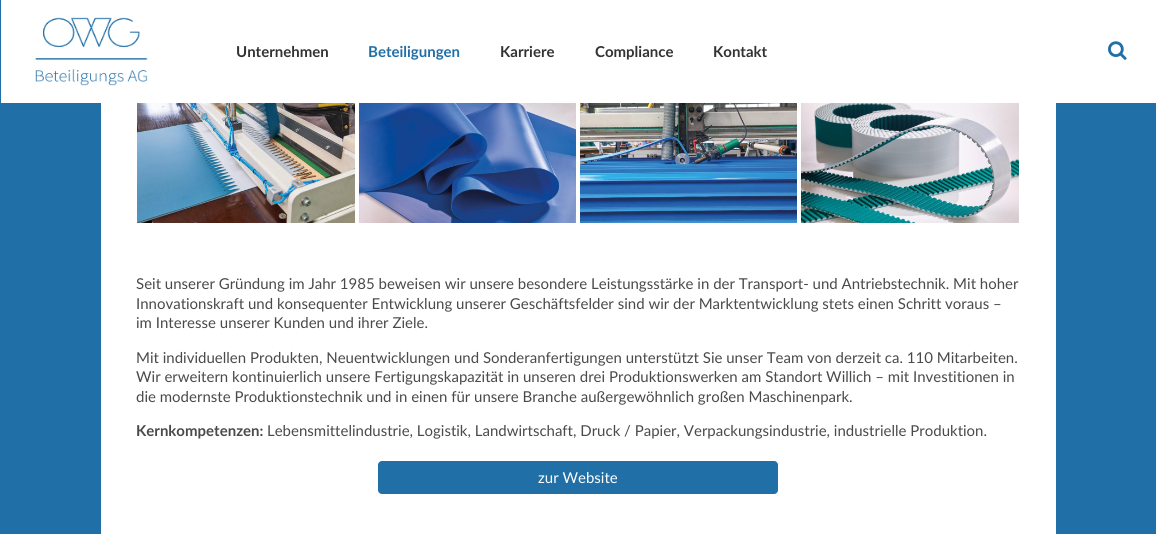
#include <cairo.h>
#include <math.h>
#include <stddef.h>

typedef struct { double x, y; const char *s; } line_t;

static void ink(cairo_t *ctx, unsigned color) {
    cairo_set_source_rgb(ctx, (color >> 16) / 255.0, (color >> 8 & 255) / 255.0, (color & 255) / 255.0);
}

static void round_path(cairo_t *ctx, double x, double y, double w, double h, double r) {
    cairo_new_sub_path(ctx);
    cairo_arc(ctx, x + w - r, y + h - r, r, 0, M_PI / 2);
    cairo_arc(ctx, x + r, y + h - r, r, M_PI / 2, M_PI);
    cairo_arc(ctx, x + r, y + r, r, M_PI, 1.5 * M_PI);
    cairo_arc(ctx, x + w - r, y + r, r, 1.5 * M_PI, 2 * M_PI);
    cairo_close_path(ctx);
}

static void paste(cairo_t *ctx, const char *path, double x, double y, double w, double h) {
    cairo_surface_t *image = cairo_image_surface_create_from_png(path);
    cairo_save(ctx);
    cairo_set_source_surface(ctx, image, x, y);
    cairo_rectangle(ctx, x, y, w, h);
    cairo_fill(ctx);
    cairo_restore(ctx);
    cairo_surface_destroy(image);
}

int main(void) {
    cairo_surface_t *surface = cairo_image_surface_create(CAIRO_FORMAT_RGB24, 1156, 534);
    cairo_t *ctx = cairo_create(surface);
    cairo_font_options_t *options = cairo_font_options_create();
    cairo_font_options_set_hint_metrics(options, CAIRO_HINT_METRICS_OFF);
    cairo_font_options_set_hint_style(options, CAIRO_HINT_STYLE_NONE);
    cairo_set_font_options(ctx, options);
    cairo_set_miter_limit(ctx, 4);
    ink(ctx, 0x206FA7);
    cairo_paint(ctx);
    ink(ctx, 0xFFFFFF);
    cairo_rectangle(ctx, 1, 0, 1155, 103);
    cairo_fill(ctx);
    paste(ctx, "media/1.png", 35, 17, 113, 69);
    cairo_select_font_face(ctx, "Lato", CAIRO_FONT_SLANT_NORMAL, CAIRO_FONT_WEIGHT_BOLD);
    cairo_set_font_size(ctx, 15);
    ink(ctx, 0x333333);
    cairo_move_to(ctx, 236, 57);
    cairo_show_text(ctx, "Unternehmen");
    ink(ctx, 0x206FA7);
    cairo_move_to(ctx, 368, 57);
    cairo_show_text(ctx, "Beteiligungen");
    ink(ctx, 0x333333);
    {
        static const line_t items[] = {
            {500, 57, "Karriere"},
            {595, 57, "Compliance"},
            {713, 57, "Kontakt"},
        };
        for (size_t i = 0; i < sizeof items / sizeof *items; i++) {
            cairo_move_to(ctx, items[i].x, items[i].y);
            cairo_show_text(ctx, items[i].s);
        }
    }
    paste(ctx, "media/2.png", 1108, 41, 19, 19);
    ink(ctx, 0xFFFFFF);
    cairo_rectangle(ctx, 101, 103, 955, 431);
    cairo_fill(ctx);
    paste(ctx, "media/3.png", 137, 103, 218, 120);
    paste(ctx, "media/4.png", 359, 103, 217, 120);
    paste(ctx, "media/5.png", 580, 103, 217, 120);
    paste(ctx, "media/6.png", 801, 103, 218, 120);
    cairo_select_font_face(ctx, "Lato", CAIRO_FONT_SLANT_NORMAL, CAIRO_FONT_WEIGHT_NORMAL);
    ink(ctx, 0x4A4A4A);
    {
        static const line_t items[] = {
            {136, 289, "Seit unserer Gründung im Jahr 1985 beweisen wir unsere besondere Leistungsstärke in der Transport- und Antriebstechnik. Mit hoher"},
            {136, 309, "Innovationskraft und konsequenter Entwicklung unserer Geschäftsfelder sind wir der Marktentwicklung stets einen Schritt voraus –"},
            {136, 328, "im Interesse unserer Kunden und ihrer Ziele."},
            {136, 363, "Mit individuellen Produkten, Neuentwicklungen und Sonderanfertigungen unterstützt Sie unser Team von derzeit ca. 110 Mitarbeiten."},
            {136, 382, "Wir erweitern kontinuierlich unsere Fertigungskapazität in unseren drei Produktionswerken am Standort Willich – mit Investitionen in"},
            {136, 402, "die modernste Produktionstechnik und in einen für unsere Branche außergewöhnlich großen Maschinenpark."},
        };
        for (size_t i = 0; i < sizeof items / sizeof *items; i++) {
            cairo_move_to(ctx, items[i].x, items[i].y);
            cairo_show_text(ctx, items[i].s);
        }
    }
    cairo_select_font_face(ctx, "Lato", CAIRO_FONT_SLANT_NORMAL, CAIRO_FONT_WEIGHT_BOLD);
    cairo_move_to(ctx, 136, 436);
    cairo_show_text(ctx, "Kernkompetenzen:");
    cairo_select_font_face(ctx, "Lato", CAIRO_FONT_SLANT_NORMAL, CAIRO_FONT_WEIGHT_NORMAL);
    cairo_move_to(ctx, 267, 436);
    cairo_show_text(ctx, "Lebensmittelindustrie, Logistik, Landwirtschaft, Druck / Papier, Verpackungsindustrie, industrielle Produktion.");
    ink(ctx, 0x206FA7);
    round_path(ctx, 378, 461, 400, 33, 4);
    cairo_fill(ctx);
    ink(ctx, 0xFFFFFF);
    cairo_move_to(ctx, 538, 483);
    cairo_show_text(ctx, "zur Website");
    cairo_surface_write_to_png(surface, "image.png");
    cairo_font_options_destroy(options);
    cairo_destroy(ctx);
    cairo_surface_destroy(surface);
    return 0;
}
